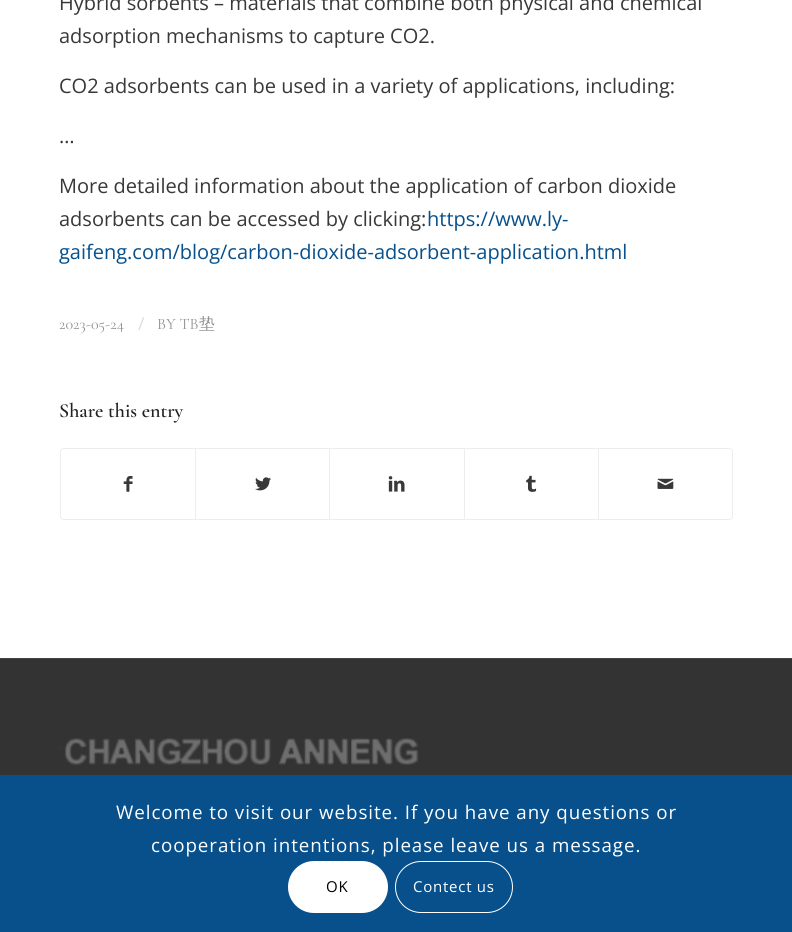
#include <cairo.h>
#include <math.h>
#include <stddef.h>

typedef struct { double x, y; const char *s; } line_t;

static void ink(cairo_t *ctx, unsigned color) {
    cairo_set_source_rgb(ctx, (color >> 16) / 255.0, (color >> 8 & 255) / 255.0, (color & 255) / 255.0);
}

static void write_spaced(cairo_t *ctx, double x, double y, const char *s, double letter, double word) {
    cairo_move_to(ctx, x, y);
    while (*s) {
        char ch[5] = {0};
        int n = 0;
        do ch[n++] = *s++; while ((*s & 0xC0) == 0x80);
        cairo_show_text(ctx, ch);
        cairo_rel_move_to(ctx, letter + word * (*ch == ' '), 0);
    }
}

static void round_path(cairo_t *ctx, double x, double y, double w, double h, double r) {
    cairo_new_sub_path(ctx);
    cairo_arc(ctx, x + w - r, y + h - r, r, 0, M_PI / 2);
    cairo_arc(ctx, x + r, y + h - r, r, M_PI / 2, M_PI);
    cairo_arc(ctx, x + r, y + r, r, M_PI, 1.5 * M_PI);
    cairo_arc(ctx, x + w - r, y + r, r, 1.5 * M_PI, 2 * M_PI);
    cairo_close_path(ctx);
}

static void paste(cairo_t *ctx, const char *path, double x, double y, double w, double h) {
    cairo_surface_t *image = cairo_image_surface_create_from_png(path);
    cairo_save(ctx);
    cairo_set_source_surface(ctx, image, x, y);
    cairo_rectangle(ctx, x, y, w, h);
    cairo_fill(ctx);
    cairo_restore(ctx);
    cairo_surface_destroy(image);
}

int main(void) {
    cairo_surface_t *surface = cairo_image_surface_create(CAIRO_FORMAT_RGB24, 792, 932);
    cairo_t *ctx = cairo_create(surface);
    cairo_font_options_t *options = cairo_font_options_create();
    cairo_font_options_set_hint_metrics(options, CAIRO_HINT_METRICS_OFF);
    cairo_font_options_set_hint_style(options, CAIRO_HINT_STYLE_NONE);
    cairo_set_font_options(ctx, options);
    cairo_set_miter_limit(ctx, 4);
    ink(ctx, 0xFFFFFF);
    cairo_paint(ctx);
    cairo_select_font_face(ctx, "Open Sans", CAIRO_FONT_SLANT_NORMAL, CAIRO_FONT_WEIGHT_NORMAL);
    cairo_set_font_size(ctx, 20);
    ink(ctx, 0x383838);
    {
        static const line_t items[] = {
            {59, 10, "Hybrid sorbents – materials that combine both physical and chemical"},
            {59, 43, "adsorption mechanisms to capture CO2."},
            {59, 93, "CO2 adsorbents can be used in a variety of applications, including:"},
            {59, 143, "…"},
            {59, 193, "More detailed information about the application of carbon dioxide"},
            {59, 226, "adsorbents can be accessed by clicking:"},
        };
        for (size_t i = 0; i < sizeof items / sizeof *items; i++) {
            cairo_move_to(ctx, items[i].x, items[i].y);
            cairo_show_text(ctx, items[i].s);
        }
    }
    ink(ctx, 0x07508C);
    cairo_move_to(ctx, 427, 226);
    cairo_show_text(ctx, "https://www.ly-");
    cairo_move_to(ctx, 59, 259);
    cairo_show_text(ctx, "gaifeng.com/blog/carbon-dioxide-adsorbent-application.html");
    cairo_select_font_face(ctx, "Cormorant Garamond", CAIRO_FONT_SLANT_NORMAL, CAIRO_FONT_WEIGHT_NORMAL);
    cairo_set_font_size(ctx, 16);
    ink(ctx, 0x919191);
    cairo_move_to(ctx, 59, 329);
    cairo_show_text(ctx, "2023-05-24");
    cairo_select_font_face(ctx, "Open Sans", CAIRO_FONT_SLANT_NORMAL, CAIRO_FONT_WEIGHT_NORMAL);
    cairo_set_font_size(ctx, 18);
    ink(ctx, 0xDEDEDE);
    cairo_move_to(ctx, 138, 330);
    cairo_show_text(ctx, "/");
    cairo_select_font_face(ctx, "Cormorant Garamond", CAIRO_FONT_SLANT_NORMAL, CAIRO_FONT_WEIGHT_NORMAL);
    cairo_set_font_size(ctx, 16);
    ink(ctx, 0x919191);
    cairo_move_to(ctx, 157, 329);
    cairo_show_text(ctx, "BY TB");
    cairo_select_font_face(ctx, "WenQuanYi Zen Hei Medium", CAIRO_FONT_SLANT_NORMAL, CAIRO_FONT_WEIGHT_NORMAL);
    cairo_move_to(ctx, 199, 329);
    cairo_show_text(ctx, "垫");
    cairo_select_font_face(ctx, "Cormorant Garamond SemiBold", CAIRO_FONT_SLANT_NORMAL, CAIRO_FONT_WEIGHT_NORMAL);
    cairo_set_font_size(ctx, 20);
    ink(ctx, 0x222222);
    cairo_move_to(ctx, 59, 417);
    cairo_show_text(ctx, "Share this entry");
    round_path(ctx, 60.5, 448.5, 672, 71, 3.5);
    ink(ctx, 0xEDEDED);
    cairo_set_line_width(ctx, 1);
    cairo_stroke(ctx);
    paste(ctx, "media/1.png", 123, 476, 10, 16);
    cairo_rectangle(ctx, 195, 449, 1, 70);
    cairo_fill(ctx);
    paste(ctx, "media/2.png", 255, 477, 16, 14);
    cairo_rectangle(ctx, 329, 449, 1, 70);
    cairo_fill(ctx);
    paste(ctx, "media/3.png", 388, 476, 17, 16);
    cairo_rectangle(ctx, 464, 449, 1, 70);
    cairo_fill(ctx);
    paste(ctx, "media/4.png", 526, 475, 11, 17);
    cairo_rectangle(ctx, 598, 449, 1, 70);
    cairo_fill(ctx);
    paste(ctx, "media/5.png", 657, 478, 17, 11);
    ink(ctx, 0x333333);
    cairo_rectangle(ctx, 0, 659, 792, 116);
    cairo_fill(ctx);
    ink(ctx, 0x444444);
    cairo_rectangle(ctx, 0, 658, 792, 1);
    cairo_fill(ctx);
    paste(ctx, "media/6.png", 60, 738, 359, 27);
    ink(ctx, 0x07508C);
    cairo_rectangle(ctx, 0, 775, 792, 157);
    cairo_fill(ctx);
    cairo_select_font_face(ctx, "Open Sans", CAIRO_FONT_SLANT_NORMAL, CAIRO_FONT_WEIGHT_NORMAL);
    cairo_set_font_size(ctx, 18.75);
    ink(ctx, 0xFFFFFF);
    write_spaced(ctx, 116, 819, "Welcome to visit our website. If you have any questions or", 0.95, 0);
    write_spaced(ctx, 151, 852, "cooperation intentions, please leave us a message.", 0.95, 0);
    round_path(ctx, 288, 861, 100, 52, 26);
    cairo_fill(ctx);
    cairo_set_font_size(ctx, 15);
    ink(ctx, 0x000000);
    write_spaced(ctx, 326, 892, "OK", 0.75, 0);
    round_path(ctx, 395.5, 861.5, 117, 51, 25.5);
    ink(ctx, 0xFFFFFF);
    cairo_stroke(ctx);
    write_spaced(ctx, 413, 892, "Contect us", 0.75, 0);
    cairo_surface_write_to_png(surface, "image.png");
    cairo_font_options_destroy(options);
    cairo_destroy(ctx);
    cairo_surface_destroy(surface);
    return 0;
}
